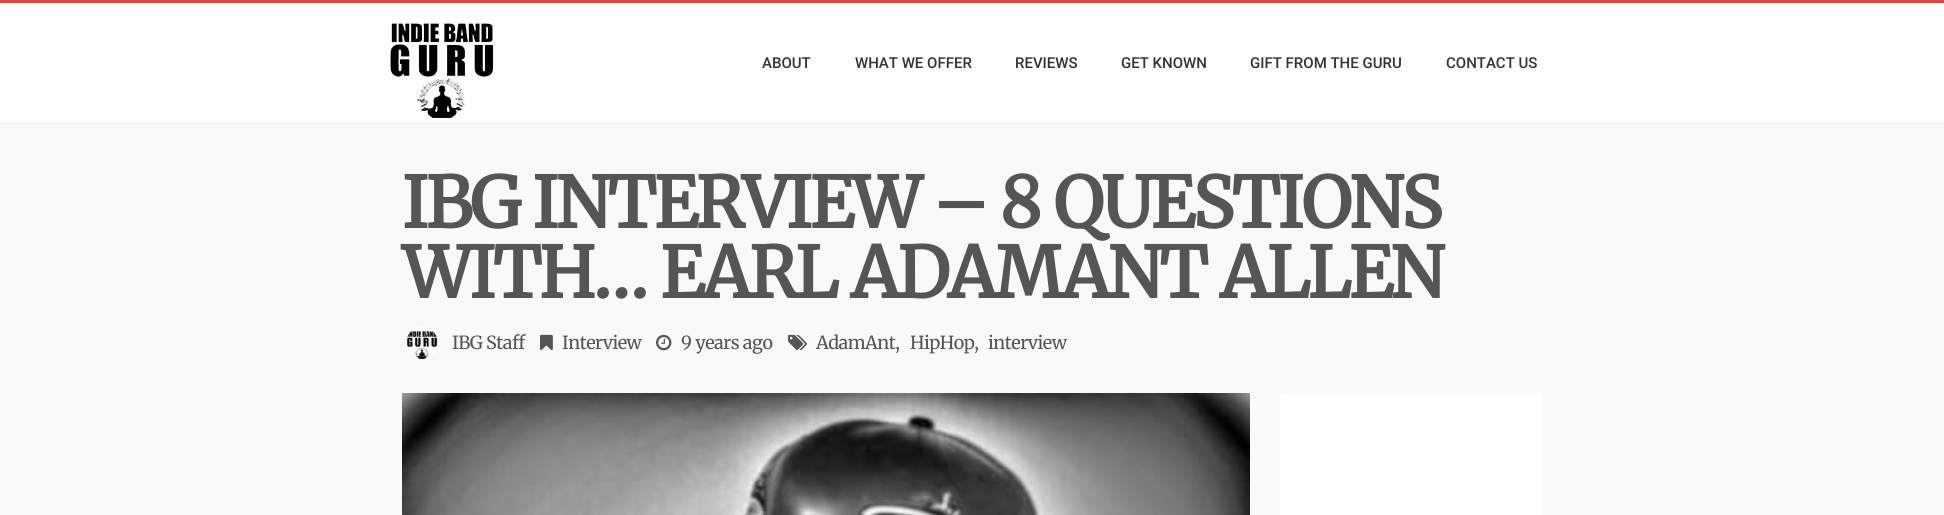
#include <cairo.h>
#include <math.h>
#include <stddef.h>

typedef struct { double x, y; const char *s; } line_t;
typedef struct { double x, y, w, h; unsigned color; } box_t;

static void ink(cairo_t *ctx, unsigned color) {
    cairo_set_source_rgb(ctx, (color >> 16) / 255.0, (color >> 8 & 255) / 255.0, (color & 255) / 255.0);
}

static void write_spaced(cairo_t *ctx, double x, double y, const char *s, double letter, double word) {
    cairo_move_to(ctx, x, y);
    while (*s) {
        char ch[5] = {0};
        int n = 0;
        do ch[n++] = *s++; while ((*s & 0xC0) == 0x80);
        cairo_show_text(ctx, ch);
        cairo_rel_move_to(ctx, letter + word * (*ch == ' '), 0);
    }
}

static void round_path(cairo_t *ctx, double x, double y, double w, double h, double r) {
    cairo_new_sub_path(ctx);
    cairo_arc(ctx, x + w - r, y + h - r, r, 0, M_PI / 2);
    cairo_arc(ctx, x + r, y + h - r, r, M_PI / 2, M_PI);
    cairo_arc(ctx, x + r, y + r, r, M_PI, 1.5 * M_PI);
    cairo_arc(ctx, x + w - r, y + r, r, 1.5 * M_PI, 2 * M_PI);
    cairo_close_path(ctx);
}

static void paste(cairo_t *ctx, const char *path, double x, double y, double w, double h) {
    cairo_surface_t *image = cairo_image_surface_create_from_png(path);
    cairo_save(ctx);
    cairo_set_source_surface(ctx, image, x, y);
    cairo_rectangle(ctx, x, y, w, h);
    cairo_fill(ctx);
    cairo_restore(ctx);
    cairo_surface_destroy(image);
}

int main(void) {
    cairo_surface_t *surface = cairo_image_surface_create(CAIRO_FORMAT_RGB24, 1944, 515);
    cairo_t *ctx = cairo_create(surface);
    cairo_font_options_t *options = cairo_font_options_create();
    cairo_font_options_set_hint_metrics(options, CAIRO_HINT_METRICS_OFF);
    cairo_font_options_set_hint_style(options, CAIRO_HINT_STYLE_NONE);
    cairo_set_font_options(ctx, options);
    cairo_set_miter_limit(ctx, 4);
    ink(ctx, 0xF9F9F9);
    cairo_paint(ctx);
    {
        static const box_t items[] = {
            {0, 123, 1944, 1, 0xEDEDED},
            {0, 3, 1944, 120, 0xFFFFFF},
            {0, 0, 1944, 3, 0xEA4139},
        };
        for (size_t i = 0; i < sizeof items / sizeof *items; i++) {
            ink(ctx, items[i].color);
            cairo_rectangle(ctx, items[i].x, items[i].y, items[i].w, items[i].h);
            cairo_fill(ctx);
        }
    }
    paste(ctx, "media/1.png", 390, 23, 104, 95);
    cairo_select_font_face(ctx, "Roboto Medium", CAIRO_FONT_SLANT_NORMAL, CAIRO_FONT_WEIGHT_NORMAL);
    cairo_set_font_size(ctx, 15);
    ink(ctx, 0x333333);
    {
        static const line_t items[] = {
            {762, 68, "ABOUT"},
            {855, 68, "WHAT WE OFFER"},
            {1015, 68, "REVIEWS"},
            {1121, 68, "GET KNOWN"},
            {1250, 68, "GIFT FROM THE GURU"},
            {1446, 68, "CONTACT US"},
        };
        for (size_t i = 0; i < sizeof items / sizeof *items; i++) {
            cairo_move_to(ctx, items[i].x, items[i].y);
            cairo_show_text(ctx, items[i].s);
        }
    }
    cairo_select_font_face(ctx, "Merriweather", CAIRO_FONT_SLANT_NORMAL, CAIRO_FONT_WEIGHT_BOLD);
    cairo_set_font_size(ctx, 70);
    ink(ctx, 0x555555);
    write_spaced(ctx, 402, 228, "IBG INTERVIEW – 8 QUESTIONS", -2.5, 0);
    write_spaced(ctx, 402, 298, "WITH… EARL ADAMANT ALLEN", -2.5, 0);
    paste(ctx, "media/2.png", 406, 327, 32, 32);
    cairo_select_font_face(ctx, "Merriweather Light", CAIRO_FONT_SLANT_NORMAL, CAIRO_FONT_WEIGHT_NORMAL);
    cairo_set_font_size(ctx, 18);
    write_spaced(ctx, 452, 349, "IBG Staff", -0.5, 0);
    paste(ctx, "media/3.png", 540, 334, 13, 16);
    write_spaced(ctx, 562, 349, "Interview", -0.5, 0);
    paste(ctx, "media/4.png", 656, 334, 16, 17);
    write_spaced(ctx, 681, 349, "9 years ago", -0.5, 0);
    paste(ctx, "media/5.png", 788, 334, 19, 16);
    {
        static const line_t items[] = {
            {816, 349, "AdamAnt,"},
            {910, 349, "HipHop,"},
            {988, 349, "interview"},
        };
        for (size_t i = 0; i < sizeof items / sizeof *items; i++) {
            write_spaced(ctx, items[i].x, items[i].y, items[i].s, -0.5, 0);
        }
    }
    paste(ctx, "media/6.png", 402, 393, 848, 122);
    ink(ctx, 0xFFFFFF);
    round_path(ctx, 1280, 393, 262, 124, 2);
    cairo_fill(ctx);
    cairo_surface_write_to_png(surface, "image.png");
    cairo_font_options_destroy(options);
    cairo_destroy(ctx);
    cairo_surface_destroy(surface);
    return 0;
}
